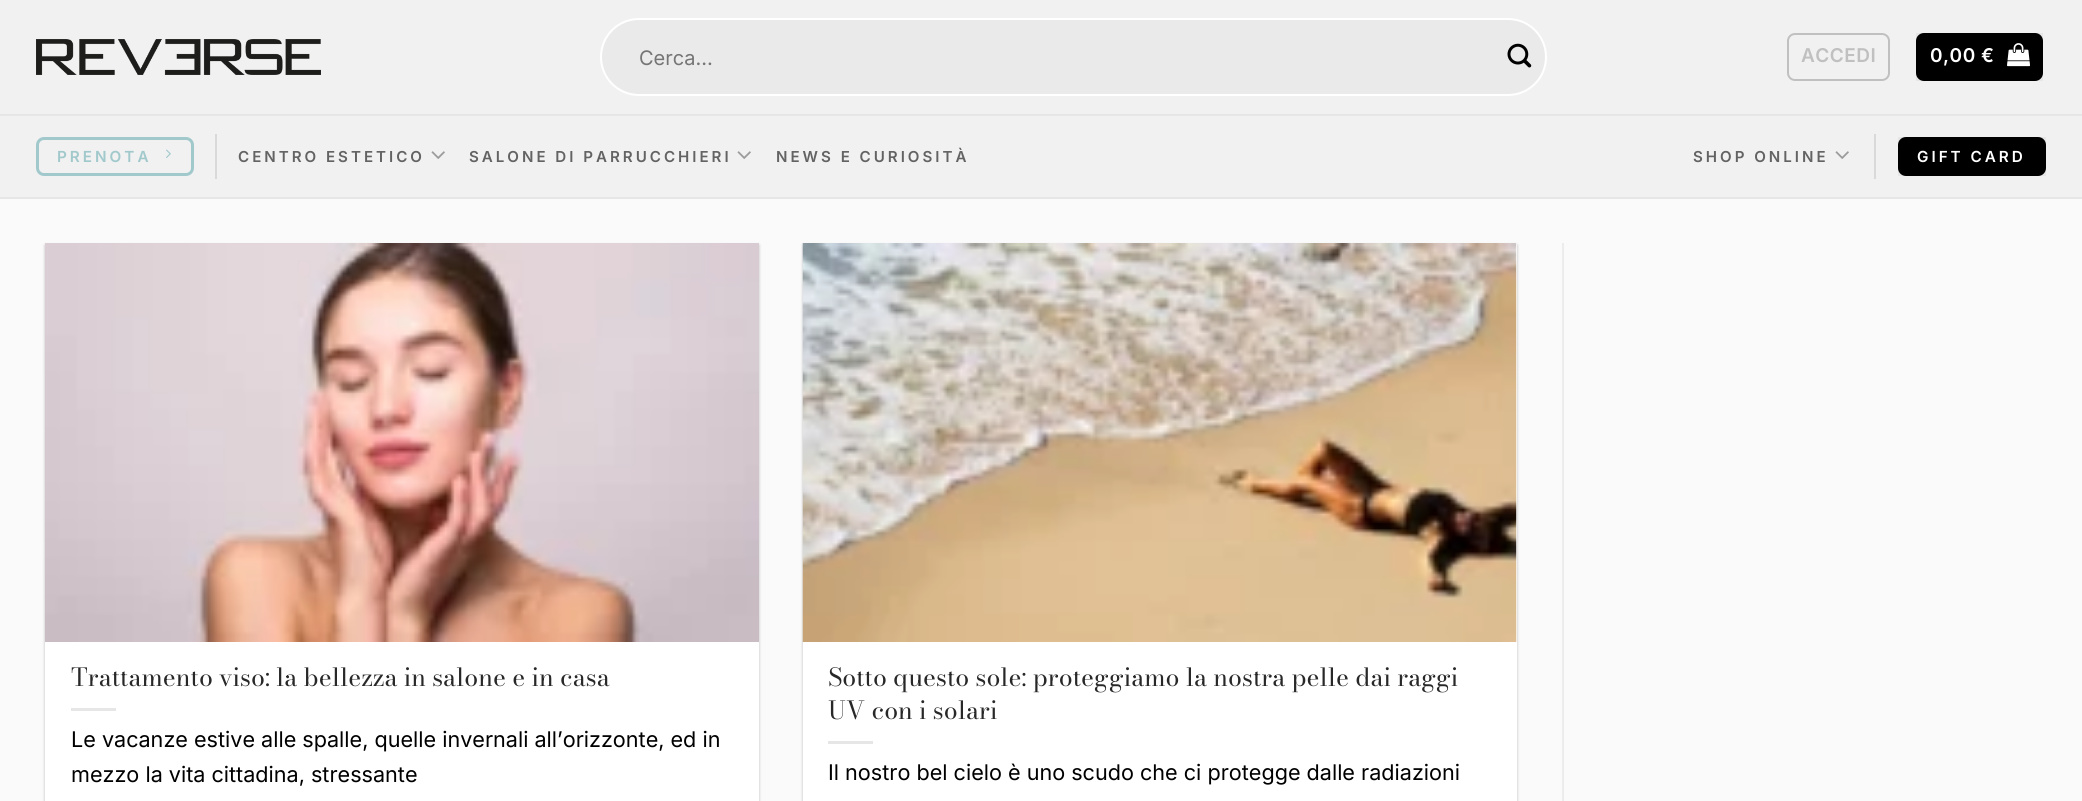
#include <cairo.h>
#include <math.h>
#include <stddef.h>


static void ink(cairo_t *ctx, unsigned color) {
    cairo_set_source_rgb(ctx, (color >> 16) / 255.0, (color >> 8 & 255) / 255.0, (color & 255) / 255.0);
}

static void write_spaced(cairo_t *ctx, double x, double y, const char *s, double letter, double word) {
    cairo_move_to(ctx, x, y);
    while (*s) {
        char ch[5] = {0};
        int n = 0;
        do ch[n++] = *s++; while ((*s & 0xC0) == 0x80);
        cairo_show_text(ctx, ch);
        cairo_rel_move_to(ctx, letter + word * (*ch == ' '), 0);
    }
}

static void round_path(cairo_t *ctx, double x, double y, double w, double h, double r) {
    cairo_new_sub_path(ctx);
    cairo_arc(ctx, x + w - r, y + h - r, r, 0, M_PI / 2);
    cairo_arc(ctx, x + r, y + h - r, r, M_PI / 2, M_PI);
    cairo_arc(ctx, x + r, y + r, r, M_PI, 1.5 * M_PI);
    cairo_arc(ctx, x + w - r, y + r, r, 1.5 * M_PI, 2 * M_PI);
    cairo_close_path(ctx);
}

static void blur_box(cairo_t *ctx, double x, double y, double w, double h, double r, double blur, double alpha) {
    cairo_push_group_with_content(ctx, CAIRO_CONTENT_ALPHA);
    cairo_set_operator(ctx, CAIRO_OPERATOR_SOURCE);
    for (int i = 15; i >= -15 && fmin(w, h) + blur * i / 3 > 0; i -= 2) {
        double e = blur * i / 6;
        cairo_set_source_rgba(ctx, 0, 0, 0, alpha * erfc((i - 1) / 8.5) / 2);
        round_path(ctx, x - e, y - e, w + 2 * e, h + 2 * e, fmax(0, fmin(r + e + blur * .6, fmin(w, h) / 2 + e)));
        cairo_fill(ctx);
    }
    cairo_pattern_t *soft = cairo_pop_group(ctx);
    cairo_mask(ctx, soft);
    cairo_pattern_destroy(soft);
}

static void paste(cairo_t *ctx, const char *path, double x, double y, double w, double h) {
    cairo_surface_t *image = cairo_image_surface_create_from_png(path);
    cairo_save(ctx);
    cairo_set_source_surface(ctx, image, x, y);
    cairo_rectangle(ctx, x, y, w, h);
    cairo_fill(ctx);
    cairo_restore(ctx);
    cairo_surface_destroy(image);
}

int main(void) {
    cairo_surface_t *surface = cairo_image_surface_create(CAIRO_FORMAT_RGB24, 2082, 801);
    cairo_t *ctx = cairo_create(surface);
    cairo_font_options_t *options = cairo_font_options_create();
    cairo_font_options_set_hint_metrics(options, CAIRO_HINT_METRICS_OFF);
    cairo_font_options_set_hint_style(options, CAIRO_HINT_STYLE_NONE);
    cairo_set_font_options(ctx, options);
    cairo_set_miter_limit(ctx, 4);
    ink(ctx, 0xFAFAFA);
    cairo_paint(ctx);
    ink(ctx, 0xF1F1F1);
    cairo_rectangle(ctx, 0, 0, 2082, 197);
    cairo_fill(ctx);
    ink(ctx, 0xE6E6E6);
    cairo_rectangle(ctx, 0, 114, 2082, 2);
    cairo_fill(ctx);
    paste(ctx, "media/1.png", 36, 39, 285, 36);
    ink(ctx, 0xEAEAEA);
    round_path(ctx, 601, 19, 945, 76, 38);
    cairo_fill_preserve(ctx);
    ink(ctx, 0xFFFFFF);
    cairo_stroke(ctx);
    cairo_select_font_face(ctx, "Inter", CAIRO_FONT_SLANT_NORMAL, CAIRO_FONT_WEIGHT_NORMAL);
    cairo_set_font_size(ctx, 20);
    ink(ctx, 0x757575);
    cairo_move_to(ctx, 639, 65);
    cairo_show_text(ctx, "Cerca…");
    paste(ctx, "media/2.png", 1507, 43, 25, 25);
    round_path(ctx, 1788, 34, 101, 46, 7);
    ink(ctx, 0xC0C0C0);
    cairo_stroke(ctx);
    cairo_select_font_face(ctx, "Inter SemiBold", CAIRO_FONT_SLANT_NORMAL, CAIRO_FONT_WEIGHT_NORMAL);
    cairo_set_font_size(ctx, 19);
    write_spaced(ctx, 1801, 62, "ACCEDI", 0.5, 0);
    ink(ctx, 0x000000);
    round_path(ctx, 1916, 33, 127, 48, 8);
    cairo_fill(ctx);
    cairo_rectangle(ctx, 1917, 34, 125, 46);
    cairo_set_source_rgba(ctx, 0, 0, 0, 0.05);
    cairo_stroke(ctx);
    ink(ctx, 0xFFFFFF);
    write_spaced(ctx, 1930, 62, "0,00 €", 0.5, 0);
    paste(ctx, "media/3.png", 2007, 43, 23, 24);
    ink(ctx, 0xE6E6E6);
    cairo_rectangle(ctx, 0, 197, 2082, 2);
    cairo_fill(ctx);
    round_path(ctx, 37.5, 138.5, 155, 36, 6.5);
    ink(ctx, 0xA1C9CC);
    cairo_set_line_width(ctx, 3);
    cairo_stroke(ctx);
    cairo_set_font_size(ctx, 15.25);
    write_spaced(ctx, 57, 162, "PRENOTA", 3, 0);
    paste(ctx, "media/4.png", 166, 149, 5, 9);
    ink(ctx, 0xD9D9D9);
    cairo_rectangle(ctx, 215, 134, 2, 45);
    cairo_fill(ctx);
    cairo_set_font_size(ctx, 15.1);
    ink(ctx, 0x636363);
    write_spaced(ctx, 238, 162, "CENTRO ESTETICO", 3, 0);
    paste(ctx, "media/5.png", 431, 151, 14, 8);
    write_spaced(ctx, 469, 162, "SALONE DI PARRUCCHIERI", 3, 0);
    paste(ctx, "media/5.png", 737, 151, 14, 8);
    write_spaced(ctx, 776, 162, "NEWS E CURIOSITÀ", 3, 0);
    write_spaced(ctx, 1693, 162, "SHOP ONLINE", 3, 0);
    paste(ctx, "media/5.png", 1835, 151, 14, 8);
    ink(ctx, 0xD9D9D9);
    cairo_rectangle(ctx, 1874, 134, 2, 45);
    cairo_fill(ctx);
    ink(ctx, 0x000000);
    round_path(ctx, 1898, 137, 148, 39, 8);
    cairo_fill(ctx);
    cairo_rectangle(ctx, 1899, 138, 146, 37);
    cairo_set_source_rgba(ctx, 0, 0, 0, 0.05);
    cairo_set_line_width(ctx, 2);
    cairo_stroke(ctx);
    cairo_set_font_size(ctx, 15.25);
    ink(ctx, 0xFFFFFF);
    write_spaced(ctx, 1917, 162, "GIFT CARD", 3, 0);
    ink(ctx, 0x000000);
    blur_box(ctx, 45, 245, 714, 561, 0, 1.5, 0.24);
    ink(ctx, 0xFFFFFF);
    cairo_rectangle(ctx, 45, 642, 714, 159);
    cairo_fill(ctx);
    paste(ctx, "media/6.png", 45, 243, 714, 399);
    cairo_select_font_face(ctx, "Bodoni Moda", CAIRO_FONT_SLANT_NORMAL, CAIRO_FONT_WEIGHT_NORMAL);
    cairo_set_font_size(ctx, 24.85);
    ink(ctx, 0x282828);
    cairo_move_to(ctx, 71, 686);
    cairo_show_text(ctx, "Trattamento viso: la bellezza in salone e in casa");
    ink(ctx, 0xE6E6E6);
    cairo_rectangle(ctx, 71, 708, 45, 3);
    cairo_fill(ctx);
    cairo_select_font_face(ctx, "Inter", CAIRO_FONT_SLANT_NORMAL, CAIRO_FONT_WEIGHT_NORMAL);
    cairo_set_font_size(ctx, 21.6);
    ink(ctx, 0x000000);
    cairo_move_to(ctx, 71, 747);
    cairo_show_text(ctx, "Le vacanze estive alle spalle, quelle invernali all’orizzonte, ed in");
    cairo_move_to(ctx, 71, 782);
    cairo_show_text(ctx, "mezzo la vita cittadina, stressante");
    ink(ctx, 0x000000);
    blur_box(ctx, 803, 245, 714, 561, 0, 1.5, 0.24);
    ink(ctx, 0xFFFFFF);
    cairo_rectangle(ctx, 803, 243, 714, 558);
    cairo_fill(ctx);
    paste(ctx, "media/7.png", 802, 243, 715, 399);
    cairo_select_font_face(ctx, "Bodoni Moda", CAIRO_FONT_SLANT_NORMAL, CAIRO_FONT_WEIGHT_NORMAL);
    cairo_set_font_size(ctx, 24.85);
    ink(ctx, 0x282828);
    cairo_move_to(ctx, 828, 686);
    cairo_show_text(ctx, "Sotto questo sole: proteggiamo la nostra pelle dai raggi");
    cairo_move_to(ctx, 828, 719);
    cairo_show_text(ctx, "UV con i solari");
    ink(ctx, 0xE6E6E6);
    cairo_rectangle(ctx, 828, 741, 45, 3);
    cairo_fill(ctx);
    cairo_select_font_face(ctx, "Inter", CAIRO_FONT_SLANT_NORMAL, CAIRO_FONT_WEIGHT_NORMAL);
    cairo_set_font_size(ctx, 21.6);
    ink(ctx, 0x000000);
    cairo_move_to(ctx, 828, 780);
    cairo_show_text(ctx, "Il nostro bel cielo è uno scudo che ci protegge dalle radiazioni");
    ink(ctx, 0xECECEC);
    cairo_rectangle(ctx, 1562, 243, 2, 558);
    cairo_fill(ctx);
    cairo_surface_write_to_png(surface, "image.png");
    cairo_font_options_destroy(options);
    cairo_destroy(ctx);
    cairo_surface_destroy(surface);
    return 0;
}
